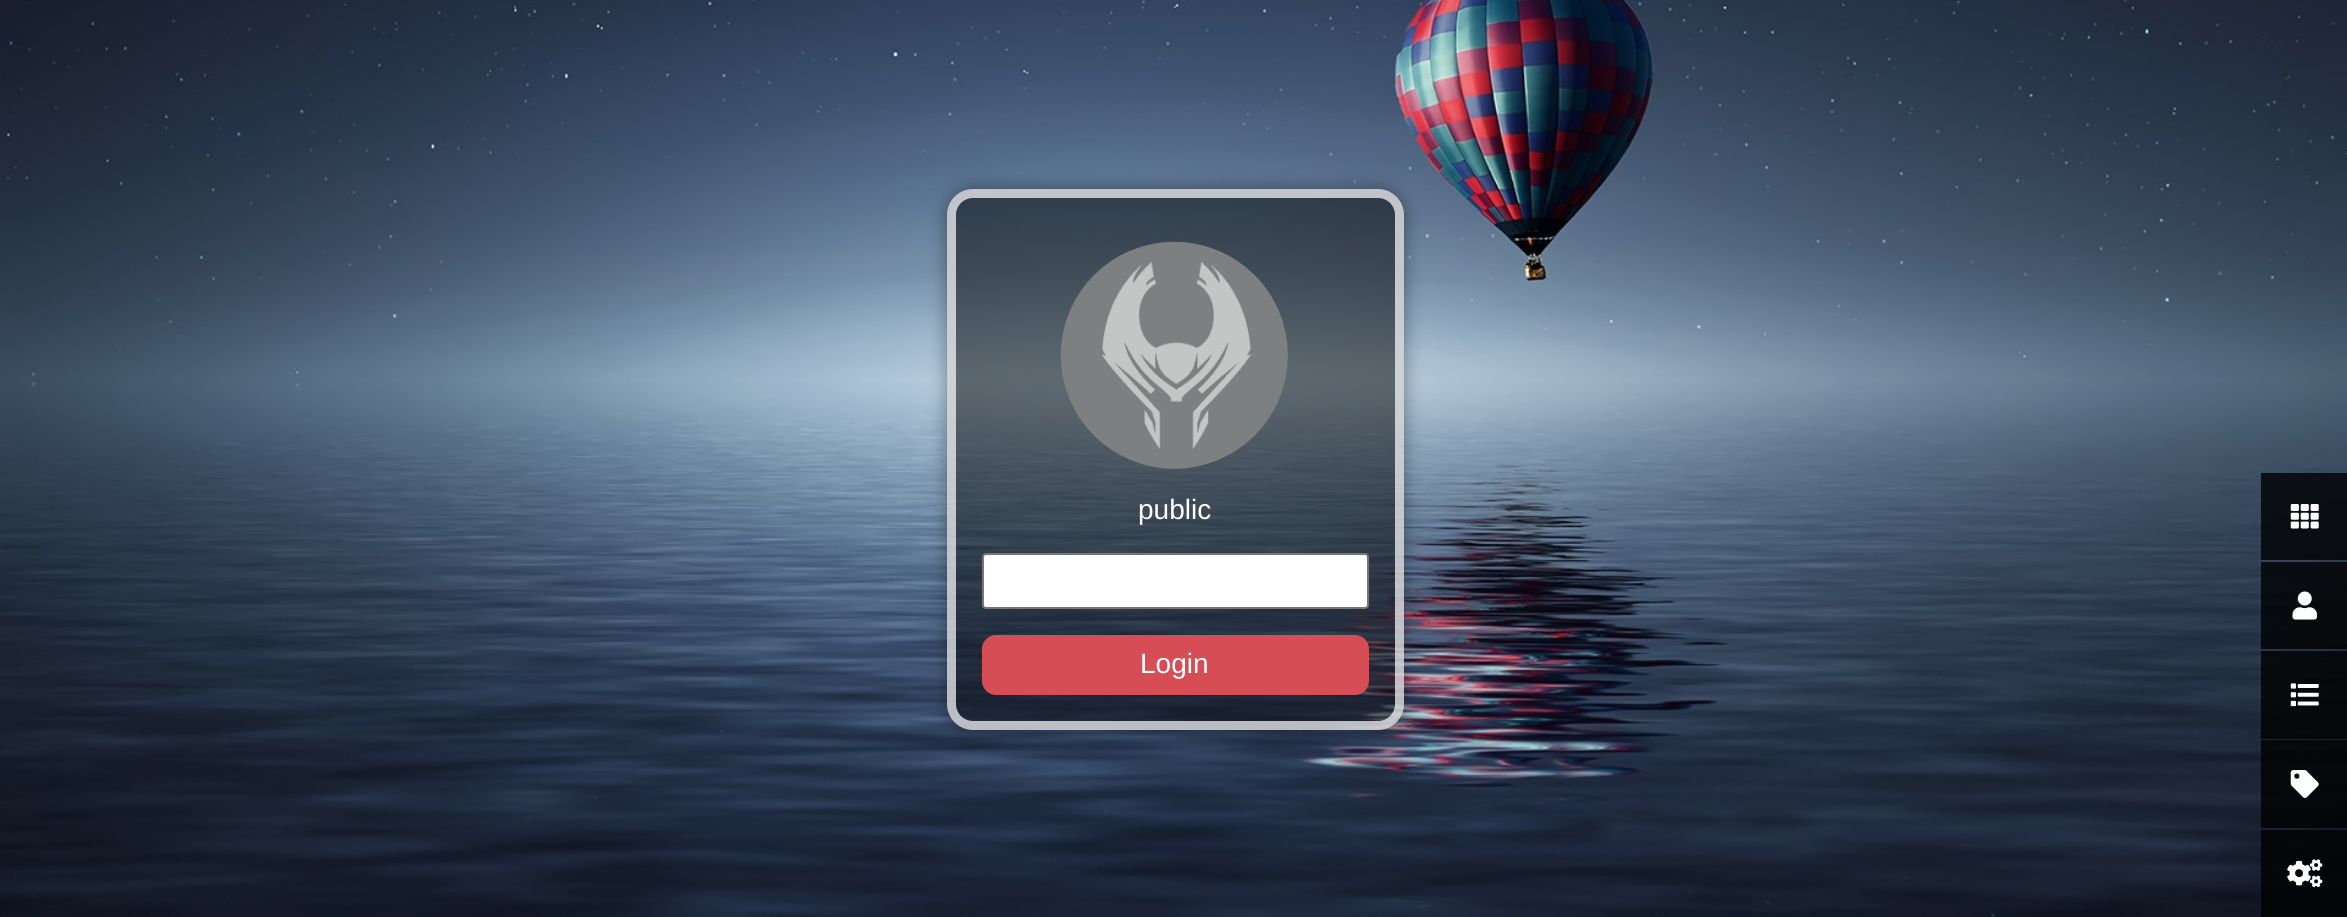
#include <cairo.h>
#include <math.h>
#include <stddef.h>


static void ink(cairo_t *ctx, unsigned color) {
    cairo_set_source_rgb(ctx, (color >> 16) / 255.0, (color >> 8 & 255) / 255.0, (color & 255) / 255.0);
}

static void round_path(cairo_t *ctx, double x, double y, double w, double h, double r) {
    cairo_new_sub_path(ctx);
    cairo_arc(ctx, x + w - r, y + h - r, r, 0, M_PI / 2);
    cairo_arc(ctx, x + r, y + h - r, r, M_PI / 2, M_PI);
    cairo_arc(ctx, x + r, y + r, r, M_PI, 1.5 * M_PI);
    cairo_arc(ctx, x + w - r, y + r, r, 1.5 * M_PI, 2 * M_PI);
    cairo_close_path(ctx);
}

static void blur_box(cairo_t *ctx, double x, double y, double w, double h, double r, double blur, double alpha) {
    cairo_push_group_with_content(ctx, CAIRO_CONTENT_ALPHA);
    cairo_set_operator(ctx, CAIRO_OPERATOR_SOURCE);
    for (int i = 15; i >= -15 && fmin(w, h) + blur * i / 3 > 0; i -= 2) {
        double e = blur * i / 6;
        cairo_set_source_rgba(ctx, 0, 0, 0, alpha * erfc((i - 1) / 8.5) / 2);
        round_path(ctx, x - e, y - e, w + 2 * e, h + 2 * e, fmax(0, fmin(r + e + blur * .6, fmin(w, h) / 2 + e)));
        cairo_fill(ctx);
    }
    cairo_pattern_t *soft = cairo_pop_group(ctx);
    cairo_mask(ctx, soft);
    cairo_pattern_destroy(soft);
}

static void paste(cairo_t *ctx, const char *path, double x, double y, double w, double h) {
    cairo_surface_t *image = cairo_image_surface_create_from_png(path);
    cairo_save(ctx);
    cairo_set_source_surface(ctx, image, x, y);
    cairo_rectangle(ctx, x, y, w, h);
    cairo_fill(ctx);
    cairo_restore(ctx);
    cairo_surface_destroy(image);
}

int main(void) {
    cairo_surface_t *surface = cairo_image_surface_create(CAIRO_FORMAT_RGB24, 2347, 917);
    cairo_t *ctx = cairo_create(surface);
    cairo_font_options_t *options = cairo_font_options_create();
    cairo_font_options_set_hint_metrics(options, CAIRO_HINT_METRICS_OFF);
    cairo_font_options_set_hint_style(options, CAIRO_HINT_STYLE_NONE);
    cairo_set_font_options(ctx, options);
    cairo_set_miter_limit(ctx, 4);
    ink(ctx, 0xFFFFFF);
    cairo_paint(ctx);
    paste(ctx, "media/1.png", 0, 0, 2347, 917);
    cairo_save(ctx);
    cairo_set_fill_rule(ctx, CAIRO_FILL_RULE_EVEN_ODD);
    cairo_new_path(ctx);
    cairo_move_to(ctx, 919, 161);
    cairo_line_to(ctx, 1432, 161);
    cairo_line_to(ctx, 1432, 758);
    cairo_line_to(ctx, 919, 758);
    cairo_close_path(ctx);
    cairo_move_to(ctx, 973, 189);
    cairo_line_to(ctx, 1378, 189);
    cairo_curve_to(ctx, 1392.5, 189, 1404, 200.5, 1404, 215);
    cairo_line_to(ctx, 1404, 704);
    cairo_curve_to(ctx, 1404, 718.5, 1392.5, 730, 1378, 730);
    cairo_line_to(ctx, 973, 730);
    cairo_curve_to(ctx, 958.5, 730, 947, 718.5, 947, 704);
    cairo_line_to(ctx, 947, 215);
    cairo_curve_to(ctx, 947, 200.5, 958.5, 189, 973, 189);
    cairo_close_path(ctx);
    cairo_clip(ctx);
    ink(ctx, 0x000000);
    blur_box(ctx, 947, 189, 457, 541, 26, 9, 0.4);
    cairo_restore(ctx);
    cairo_set_source_rgba(ctx, 0, 0, 0, 0.5);
    round_path(ctx, 947, 189, 457, 541, 26);
    cairo_fill(ctx);
    round_path(ctx, 951.5, 193.5, 448, 532, 21.5);
    cairo_set_source_rgba(ctx, 1, 1, 1, 0.7);
    cairo_set_line_width(ctx, 9);
    cairo_stroke(ctx);
    paste(ctx, "media/2.png", 1060, 241, 228, 228);
    cairo_select_font_face(ctx, "Liberation Sans", CAIRO_FONT_SLANT_NORMAL, CAIRO_FONT_WEIGHT_NORMAL);
    cairo_set_font_size(ctx, 28);
    ink(ctx, 0xFFFFFF);
    cairo_move_to(ctx, 1138, 519);
    cairo_show_text(ctx, "public");
    round_path(ctx, 983, 554, 385, 54, 3);
    cairo_fill_preserve(ctx);
    ink(ctx, 0x767676);
    cairo_set_line_width(ctx, 2);
    cairo_stroke(ctx);
    ink(ctx, 0xD64D55);
    round_path(ctx, 982, 635, 387, 60, 14);
    cairo_fill(ctx);
    ink(ctx, 0xFFFFFF);
    cairo_move_to(ctx, 1140, 673);
    cairo_show_text(ctx, "Login");
    cairo_set_source_rgba(ctx, 0, 0, 0, 0.8);
    cairo_rectangle(ctx, 2261, 473, 86, 87);
    cairo_fill(ctx);
    paste(ctx, "media/3.png", 2290, 504, 29, 25);
    cairo_rectangle(ctx, 2261, 562, 86, 87);
    cairo_fill(ctx);
    paste(ctx, "media/4.png", 2292, 591, 25, 29);
    cairo_rectangle(ctx, 2261, 651, 86, 88);
    cairo_fill(ctx);
    paste(ctx, "media/5.png", 2290, 683, 29, 24);
    cairo_rectangle(ctx, 2261, 740, 86, 88);
    cairo_fill(ctx);
    paste(ctx, "media/6.png", 2290, 770, 29, 28);
    cairo_rectangle(ctx, 2261, 830, 86, 87);
    cairo_fill(ctx);
    paste(ctx, "media/7.png", 2287, 859, 36, 29);
    cairo_surface_write_to_png(surface, "image.png");
    cairo_font_options_destroy(options);
    cairo_destroy(ctx);
    cairo_surface_destroy(surface);
    return 0;
}
